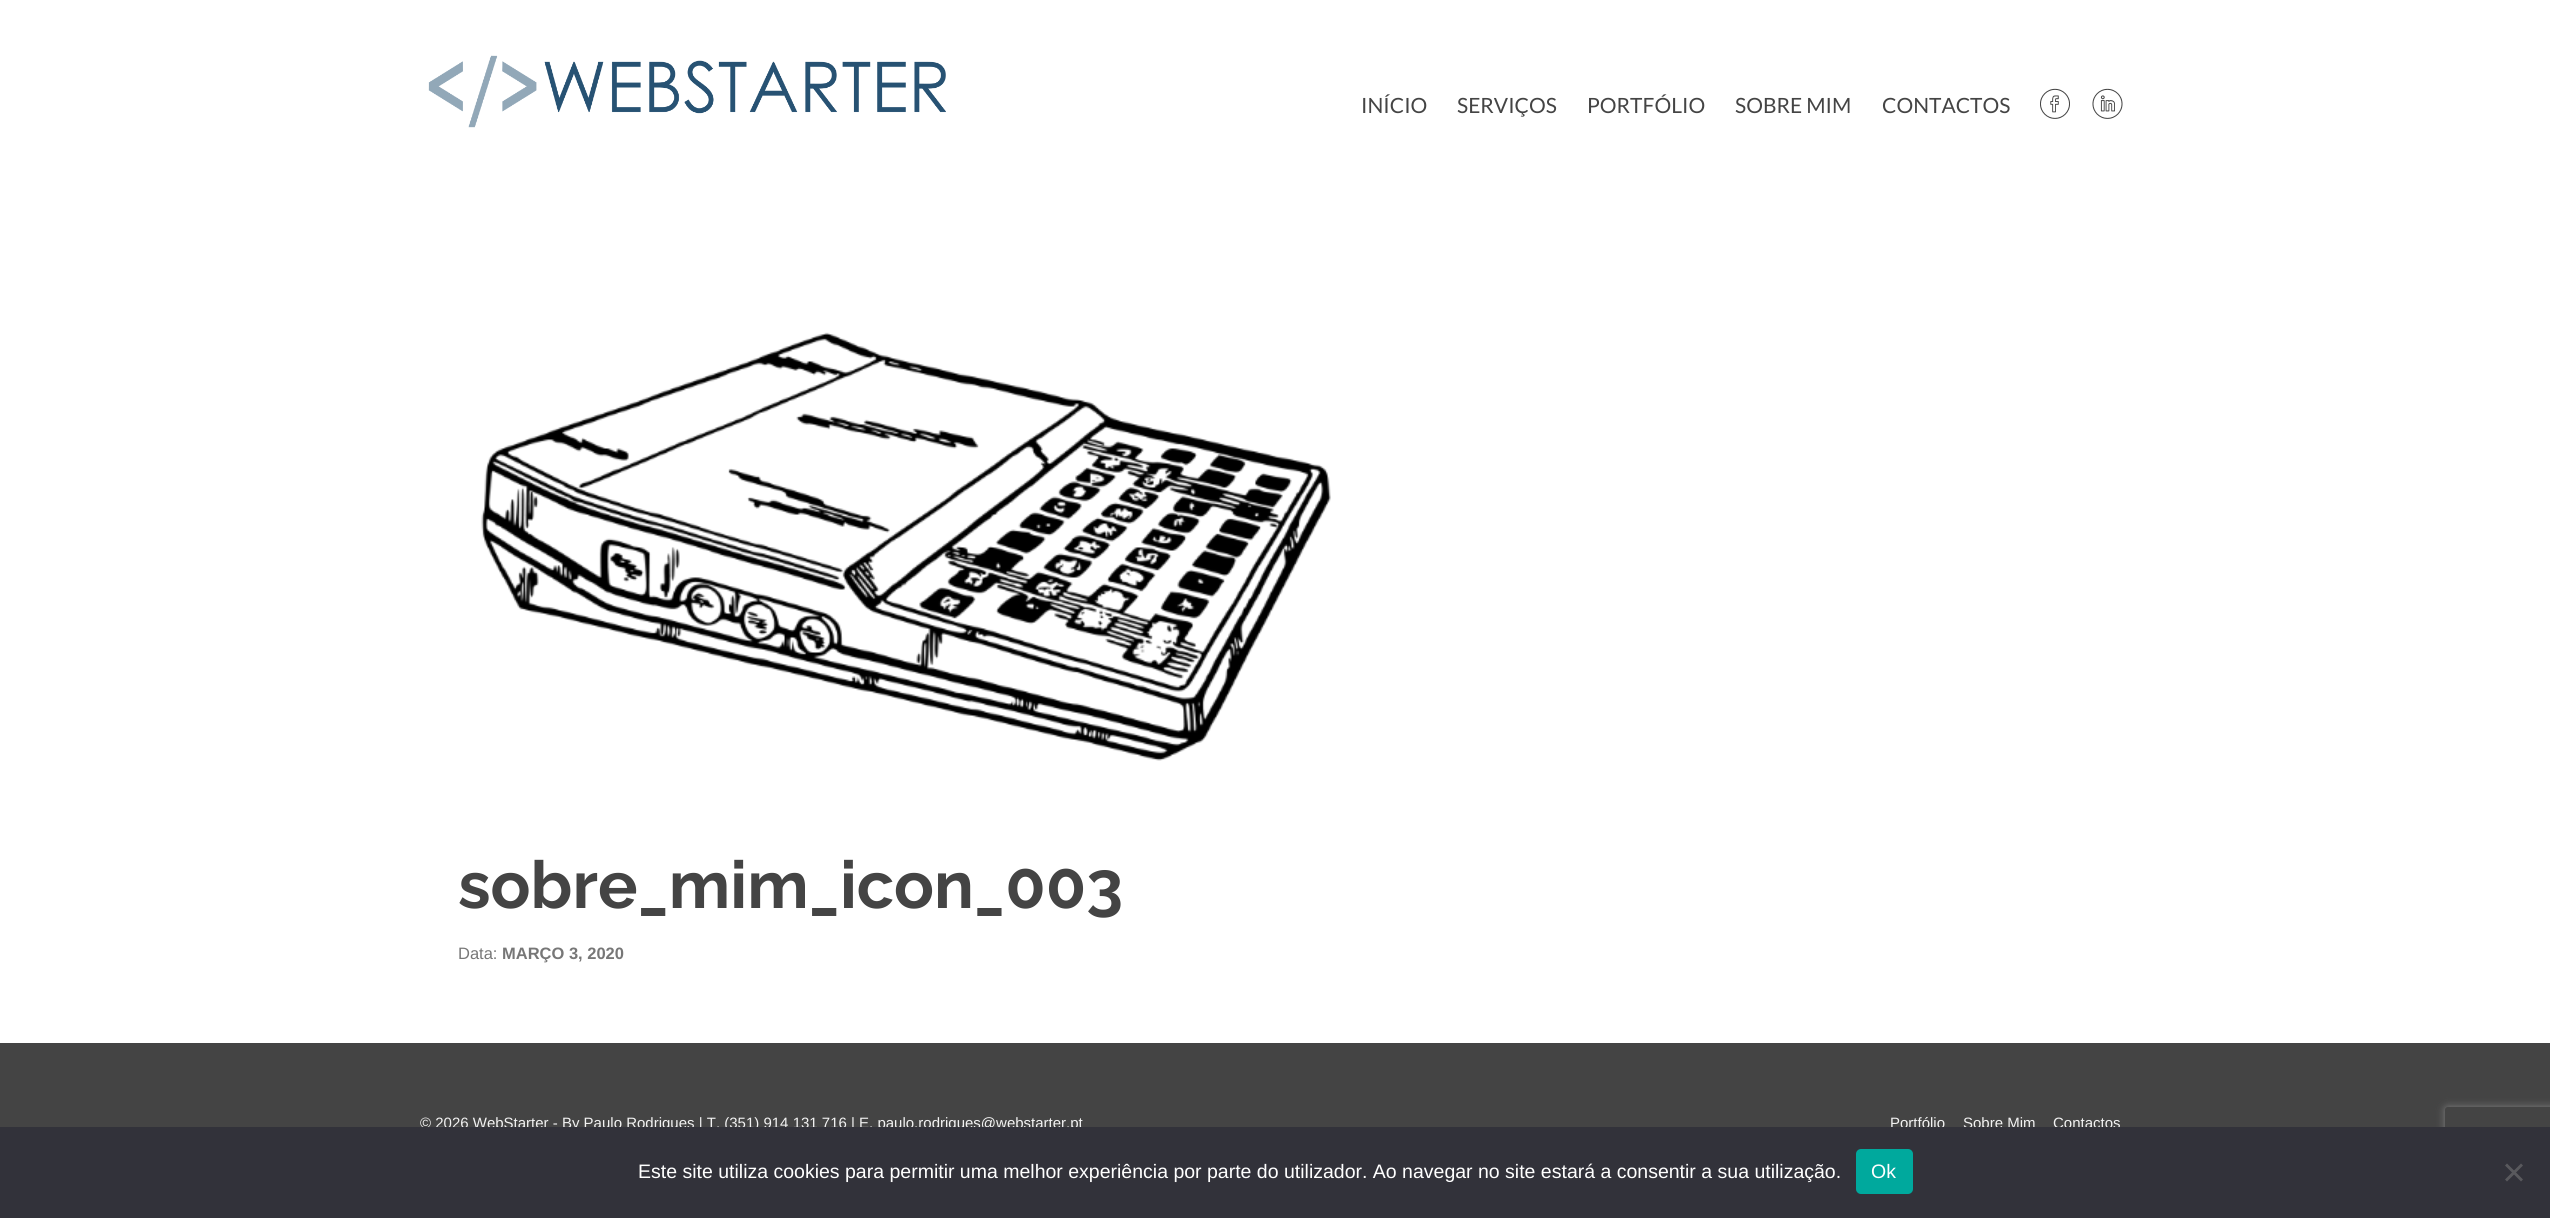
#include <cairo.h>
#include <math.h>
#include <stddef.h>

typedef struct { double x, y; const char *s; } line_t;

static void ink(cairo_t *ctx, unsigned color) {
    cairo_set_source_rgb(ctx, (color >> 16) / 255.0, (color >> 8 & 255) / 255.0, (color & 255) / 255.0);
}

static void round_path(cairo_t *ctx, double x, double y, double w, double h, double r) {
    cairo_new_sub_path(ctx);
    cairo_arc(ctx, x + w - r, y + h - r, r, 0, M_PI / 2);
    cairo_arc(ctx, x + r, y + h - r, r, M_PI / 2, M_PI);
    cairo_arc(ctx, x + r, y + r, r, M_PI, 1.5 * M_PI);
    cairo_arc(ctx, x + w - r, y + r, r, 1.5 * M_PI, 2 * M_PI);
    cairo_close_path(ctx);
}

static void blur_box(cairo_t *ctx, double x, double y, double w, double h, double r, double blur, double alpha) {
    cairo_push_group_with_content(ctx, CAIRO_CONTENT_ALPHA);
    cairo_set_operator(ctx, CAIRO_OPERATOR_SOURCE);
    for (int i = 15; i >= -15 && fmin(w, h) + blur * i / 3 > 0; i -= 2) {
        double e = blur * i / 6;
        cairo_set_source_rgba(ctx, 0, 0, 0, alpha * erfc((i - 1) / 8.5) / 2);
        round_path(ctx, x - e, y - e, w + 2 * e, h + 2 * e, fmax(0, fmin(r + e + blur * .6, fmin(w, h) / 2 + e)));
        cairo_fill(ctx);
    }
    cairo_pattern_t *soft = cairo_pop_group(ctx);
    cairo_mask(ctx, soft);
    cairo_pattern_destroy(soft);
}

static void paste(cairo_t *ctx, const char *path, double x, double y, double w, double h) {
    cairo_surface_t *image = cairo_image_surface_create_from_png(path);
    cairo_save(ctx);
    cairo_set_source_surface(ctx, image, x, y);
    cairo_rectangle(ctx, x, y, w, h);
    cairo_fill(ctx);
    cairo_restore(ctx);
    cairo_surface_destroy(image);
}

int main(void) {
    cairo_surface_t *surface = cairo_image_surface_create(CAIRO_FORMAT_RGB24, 2550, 1218);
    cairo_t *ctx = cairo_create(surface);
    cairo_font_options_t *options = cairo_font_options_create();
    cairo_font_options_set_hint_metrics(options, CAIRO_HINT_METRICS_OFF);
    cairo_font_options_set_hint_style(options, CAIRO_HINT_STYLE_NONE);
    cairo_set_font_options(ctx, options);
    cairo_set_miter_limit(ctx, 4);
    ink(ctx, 0xFFFFFF);
    cairo_paint(ctx);
    paste(ctx, "media/1.png", 428, 55, 518, 73);
    cairo_select_font_face(ctx, "Lato", CAIRO_FONT_SLANT_NORMAL, CAIRO_FONT_WEIGHT_NORMAL);
    cairo_set_font_size(ctx, 21);
    ink(ctx, 0x444444);
    {
        static const line_t items[] = {
            {1361, 113, "INÍCIO"},
            {1457, 113, "SERVIÇOS"},
            {1587, 113, "PORTFÓLIO"},
            {1735, 113, "SOBRE MIM"},
            {1882, 113, "CONTACTOS"},
        };
        for (size_t i = 0; i < sizeof items / sizeof *items; i++) {
            cairo_move_to(ctx, items[i].x, items[i].y);
            cairo_show_text(ctx, items[i].s);
        }
    }
    paste(ctx, "media/2.png", 2040, 88, 30, 31);
    paste(ctx, "media/3.png", 2092, 88, 31, 31);
    paste(ctx, "media/4.png", 481, 332, 850, 429);
    cairo_select_font_face(ctx, "Raleway", CAIRO_FONT_SLANT_NORMAL, CAIRO_FONT_WEIGHT_BOLD);
    cairo_set_font_size(ctx, 66);
    cairo_move_to(ctx, 458, 908);
    cairo_show_text(ctx, "sobre_mim_icon_003");
    cairo_select_font_face(ctx, "Liberation Sans", CAIRO_FONT_SLANT_NORMAL, CAIRO_FONT_WEIGHT_NORMAL);
    cairo_set_font_size(ctx, 16.5);
    ink(ctx, 0x777777);
    cairo_move_to(ctx, 458, 959);
    cairo_show_text(ctx, "Data:");
    cairo_select_font_face(ctx, "Liberation Sans", CAIRO_FONT_SLANT_NORMAL, CAIRO_FONT_WEIGHT_BOLD);
    cairo_move_to(ctx, 502, 959);
    cairo_show_text(ctx, "MARÇO 3, 2020");
    ink(ctx, 0x444444);
    cairo_rectangle(ctx, 0, 1043, 2550, 84);
    cairo_fill(ctx);
    cairo_select_font_face(ctx, "Liberation Sans", CAIRO_FONT_SLANT_NORMAL, CAIRO_FONT_WEIGHT_NORMAL);
    cairo_set_font_size(ctx, 15);
    ink(ctx, 0xF2F2F2);
    {
        static const line_t items[] = {
            {420, 1128, "© 2026 WebStarter - By Paulo Rodrigues | T. (351) 914 131 716 | E. paulo.rodrigues@webstarter.pt"},
            {1890, 1128, "Portfólio"},
            {1963, 1128, "Sobre Mim"},
            {2053, 1128, "Contactos"},
        };
        for (size_t i = 0; i < sizeof items / sizeof *items; i++) {
            cairo_move_to(ctx, items[i].x, items[i].y);
            cairo_show_text(ctx, items[i].s);
        }
    }
    cairo_save(ctx);
    cairo_set_fill_rule(ctx, CAIRO_FILL_RULE_EVEN_ODD);
    cairo_new_path(ctx);
    cairo_move_to(ctx, 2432, 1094);
    cairo_line_to(ctx, 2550, 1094);
    cairo_line_to(ctx, 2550, 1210);
    cairo_line_to(ctx, 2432, 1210);
    cairo_close_path(ctx);
    cairo_move_to(ctx, 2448, 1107);
    cairo_line_to(ctx, 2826, 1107);
    cairo_curve_to(ctx, 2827.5, 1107, 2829, 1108.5, 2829, 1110);
    cairo_line_to(ctx, 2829, 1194);
    cairo_curve_to(ctx, 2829, 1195.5, 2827.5, 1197, 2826, 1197);
    cairo_line_to(ctx, 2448, 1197);
    cairo_curve_to(ctx, 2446.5, 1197, 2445, 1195.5, 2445, 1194);
    cairo_line_to(ctx, 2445, 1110);
    cairo_curve_to(ctx, 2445, 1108.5, 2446.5, 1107, 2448, 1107);
    cairo_close_path(ctx);
    cairo_clip(ctx);
    ink(ctx, 0x808080);
    blur_box(ctx, 2445, 1107, 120, 90, 3, 4, 1);
    cairo_restore(ctx);
    ink(ctx, 0x32323A);
    cairo_rectangle(ctx, 0, 1127, 2550, 91);
    cairo_fill(ctx);
    cairo_set_font_size(ctx, 19.5);
    ink(ctx, 0xFFFFFF);
    cairo_move_to(ctx, 638, 1178);
    cairo_show_text(ctx, "Este site utiliza cookies para permitir uma melhor experiência por parte do utilizador. Ao navegar no site estará a consentir a sua utilização.");
    ink(ctx, 0x00A99D);
    round_path(ctx, 1856, 1149, 57, 45, 5);
    cairo_fill(ctx);
    ink(ctx, 0xFFFFFF);
    cairo_move_to(ctx, 1871, 1178);
    cairo_show_text(ctx, "Ok");
    ink(ctx, 0x59595D);
    cairo_new_path(ctx);
    cairo_move_to(ctx, 2521, 1163.5);
    cairo_line_to(ctx, 2523, 1165.5);
    cairo_line_to(ctx, 2507, 1181.5);
    cairo_line_to(ctx, 2505, 1179.5);
    cairo_close_path(ctx);
    cairo_fill(ctx);
    cairo_new_path(ctx);
    cairo_move_to(ctx, 2505, 1165.5);
    cairo_line_to(ctx, 2507, 1163.5);
    cairo_line_to(ctx, 2523, 1179.5);
    cairo_line_to(ctx, 2521, 1181.5);
    cairo_close_path(ctx);
    cairo_fill(ctx);
    cairo_surface_write_to_png(surface, "image.png");
    cairo_font_options_destroy(options);
    cairo_destroy(ctx);
    cairo_surface_destroy(surface);
    return 0;
}
